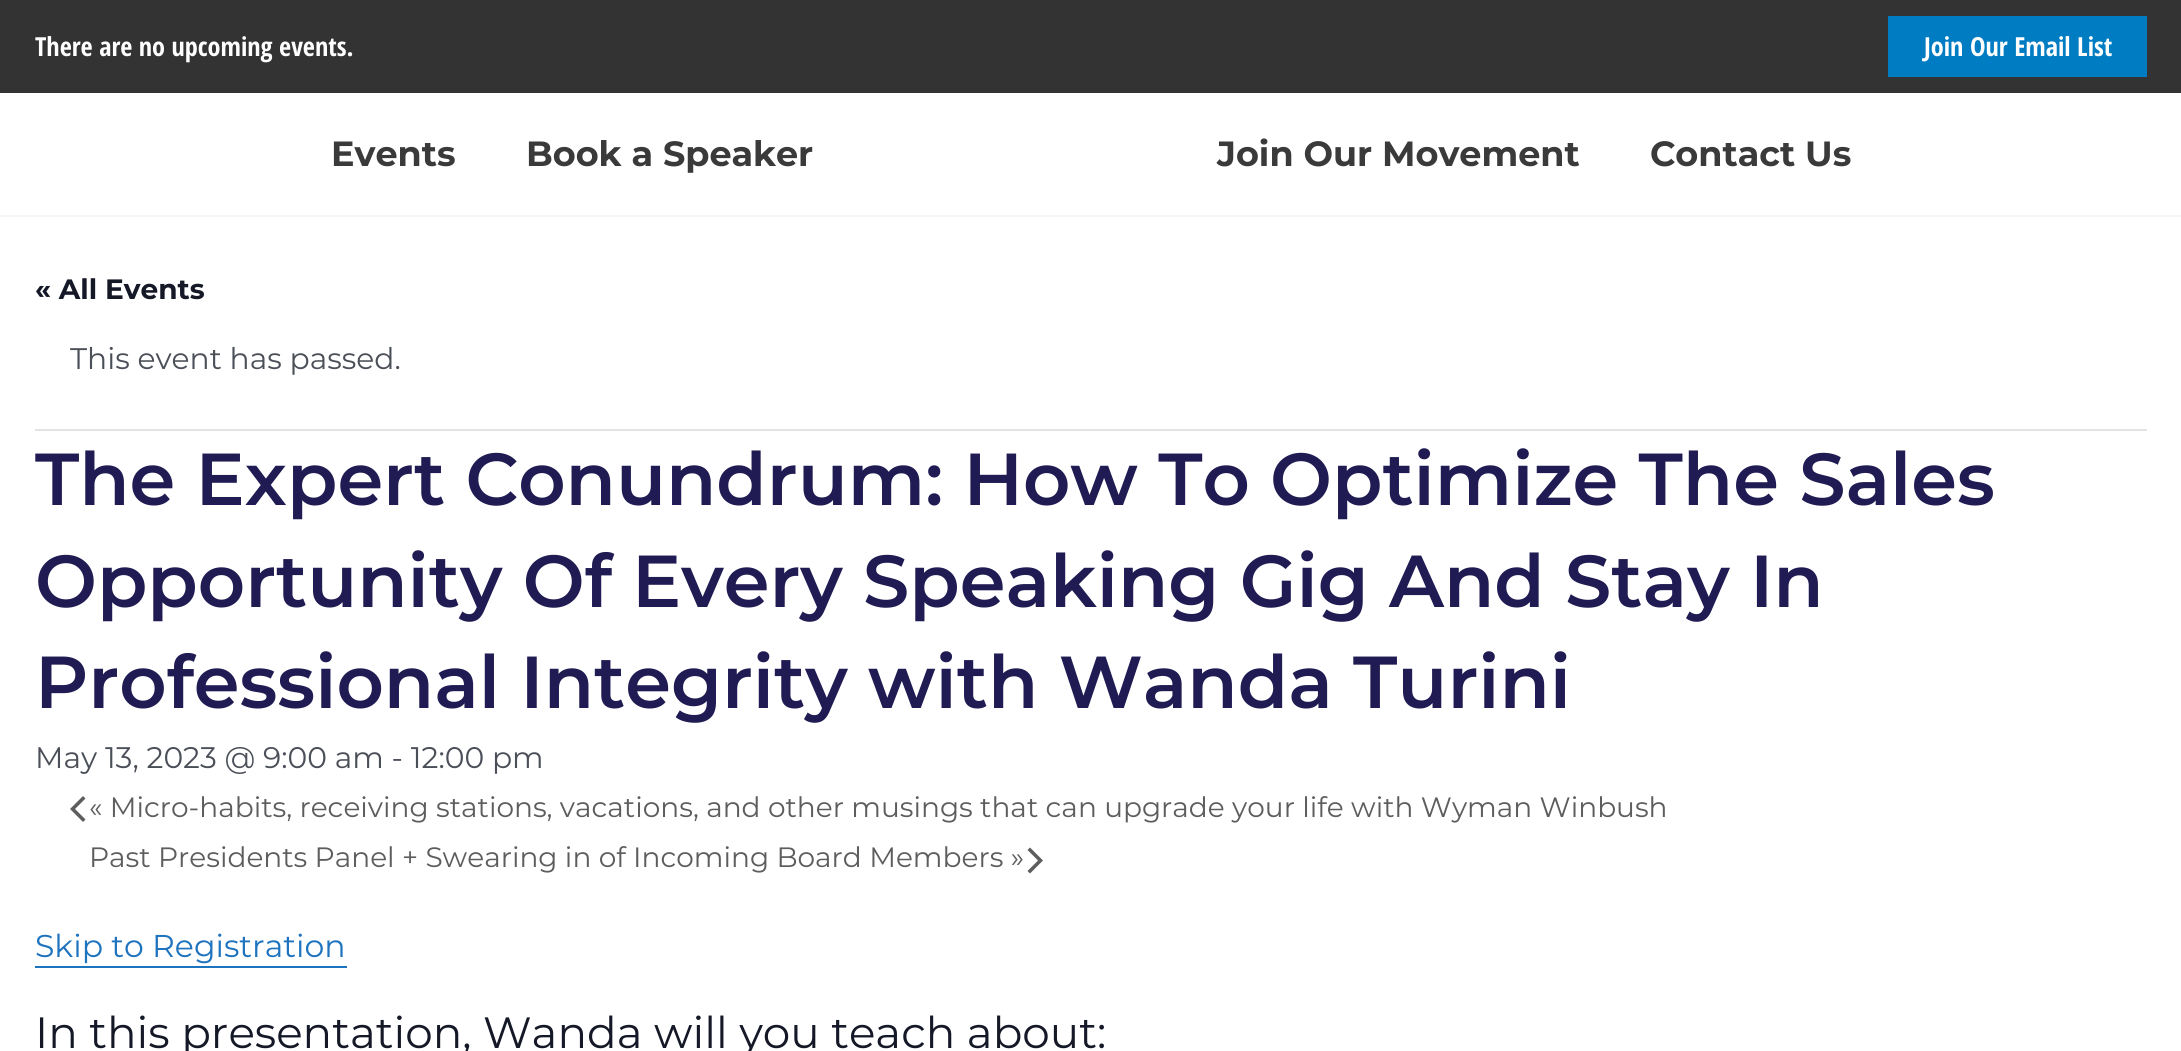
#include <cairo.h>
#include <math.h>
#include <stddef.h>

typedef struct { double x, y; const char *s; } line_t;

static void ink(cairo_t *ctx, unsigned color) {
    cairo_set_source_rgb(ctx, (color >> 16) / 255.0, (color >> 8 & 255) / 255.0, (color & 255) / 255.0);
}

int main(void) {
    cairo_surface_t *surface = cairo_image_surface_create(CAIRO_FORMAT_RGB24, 2181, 1051);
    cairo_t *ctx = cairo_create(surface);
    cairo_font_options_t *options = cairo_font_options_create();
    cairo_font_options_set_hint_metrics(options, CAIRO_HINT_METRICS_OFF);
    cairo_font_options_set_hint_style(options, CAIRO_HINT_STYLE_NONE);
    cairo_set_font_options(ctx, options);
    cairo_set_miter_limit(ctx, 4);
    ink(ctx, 0xFFFFFF);
    cairo_paint(ctx);
    ink(ctx, 0x333333);
    cairo_rectangle(ctx, 0, 0, 2181, 93);
    cairo_fill(ctx);
    cairo_select_font_face(ctx, "Open Sans Condensed", CAIRO_FONT_SLANT_NORMAL, CAIRO_FONT_WEIGHT_BOLD);
    cairo_set_font_size(ctx, 26.25);
    ink(ctx, 0xFFFFFF);
    cairo_move_to(ctx, 35, 56);
    cairo_show_text(ctx, "There are no upcoming events.");
    ink(ctx, 0x007CC3);
    cairo_rectangle(ctx, 1888, 16, 259, 61);
    cairo_fill(ctx);
    ink(ctx, 0xFFFFFF);
    cairo_move_to(ctx, 1924, 56);
    cairo_show_text(ctx, "Join Our Email List");
    ink(ctx, 0xF2F5F7);
    cairo_rectangle(ctx, 0, 215, 2181, 2);
    cairo_fill(ctx);
    cairo_select_font_face(ctx, "Montserrat", CAIRO_FONT_SLANT_NORMAL, CAIRO_FONT_WEIGHT_BOLD);
    cairo_set_font_size(ctx, 35);
    ink(ctx, 0x3A3A3A);
    {
        static const line_t items[] = {
            {331, 166, "Events"},
            {526, 166, "Book a Speaker"},
            {1217, 166, "Join Our Movement"},
            {1650, 166, "Contact Us"},
        };
        for (size_t i = 0; i < sizeof items / sizeof *items; i++) {
            cairo_move_to(ctx, items[i].x, items[i].y);
            cairo_show_text(ctx, items[i].s);
        }
    }
    cairo_set_font_size(ctx, 28);
    ink(ctx, 0x141827);
    cairo_move_to(ctx, 35, 299);
    cairo_show_text(ctx, "« All Events");
    ink(ctx, 0xE4E4E4);
    cairo_rectangle(ctx, 35, 429, 2112, 2);
    cairo_fill(ctx);
    cairo_select_font_face(ctx, "Montserrat", CAIRO_FONT_SLANT_NORMAL, CAIRO_FONT_WEIGHT_NORMAL);
    cairo_set_font_size(ctx, 29.75);
    ink(ctx, 0x4B4F58);
    cairo_move_to(ctx, 70, 369);
    cairo_show_text(ctx, "This event has passed.");
    cairo_select_font_face(ctx, "Montserrat SemiBold", CAIRO_FONT_SLANT_NORMAL, CAIRO_FONT_WEIGHT_NORMAL);
    cairo_set_font_size(ctx, 73.5);
    ink(ctx, 0x201B52);
    {
        static const line_t items[] = {
            {35, 505, "The Expert Conundrum: How To Optimize The Sales"},
            {35, 607, "Opportunity Of Every Speaking Gig And Stay In"},
            {35, 708, "Professional Integrity with Wanda Turini"},
        };
        for (size_t i = 0; i < sizeof items / sizeof *items; i++) {
            cairo_move_to(ctx, items[i].x, items[i].y);
            cairo_show_text(ctx, items[i].s);
        }
    }
    cairo_select_font_face(ctx, "Montserrat", CAIRO_FONT_SLANT_NORMAL, CAIRO_FONT_WEIGHT_NORMAL);
    cairo_set_font_size(ctx, 29.75);
    ink(ctx, 0x4B4F58);
    cairo_move_to(ctx, 35, 768);
    cairo_show_text(ctx, "May 13, 2023 @ 9:00 am - 12:00 pm");
    ink(ctx, 0x5D5D5D);
    cairo_new_path(ctx);
    cairo_move_to(ctx, 85.5, 819.5);
    cairo_line_to(ctx, 83, 822);
    cairo_line_to(ctx, 70, 809);
    cairo_line_to(ctx, 83, 796);
    cairo_line_to(ctx, 85.5, 798.5);
    cairo_line_to(ctx, 75, 809);
    cairo_close_path(ctx);
    cairo_fill(ctx);
    cairo_set_font_size(ctx, 28);
    cairo_move_to(ctx, 89, 817);
    cairo_show_text(ctx, "« Micro-habits, receiving stations, vacations, and other musings that can upgrade your life with Wyman Winbush");
    cairo_move_to(ctx, 89, 867);
    cairo_show_text(ctx, "Past Presidents Panel + Swearing in of Incoming Board Members »");
    cairo_new_path(ctx);
    cairo_move_to(ctx, 1027.5, 850);
    cairo_line_to(ctx, 1030, 847.5);
    cairo_line_to(ctx, 1043, 860.5);
    cairo_line_to(ctx, 1030, 873.5);
    cairo_line_to(ctx, 1027.5, 871);
    cairo_line_to(ctx, 1038, 860.5);
    cairo_close_path(ctx);
    cairo_fill(ctx);
    cairo_set_font_size(ctx, 31.5);
    ink(ctx, 0x1E73BE);
    cairo_move_to(ctx, 35, 957);
    cairo_show_text(ctx, "Skip to Registration");
    cairo_rectangle(ctx, 35, 966, 312, 2);
    cairo_fill(ctx);
    cairo_set_font_size(ctx, 43.75);
    ink(ctx, 0x141827);
    cairo_move_to(ctx, 35, 1048);
    cairo_show_text(ctx, "In this presentation, Wanda will you teach about:");
    cairo_surface_write_to_png(surface, "image.png");
    cairo_font_options_destroy(options);
    cairo_destroy(ctx);
    cairo_surface_destroy(surface);
    return 0;
}
